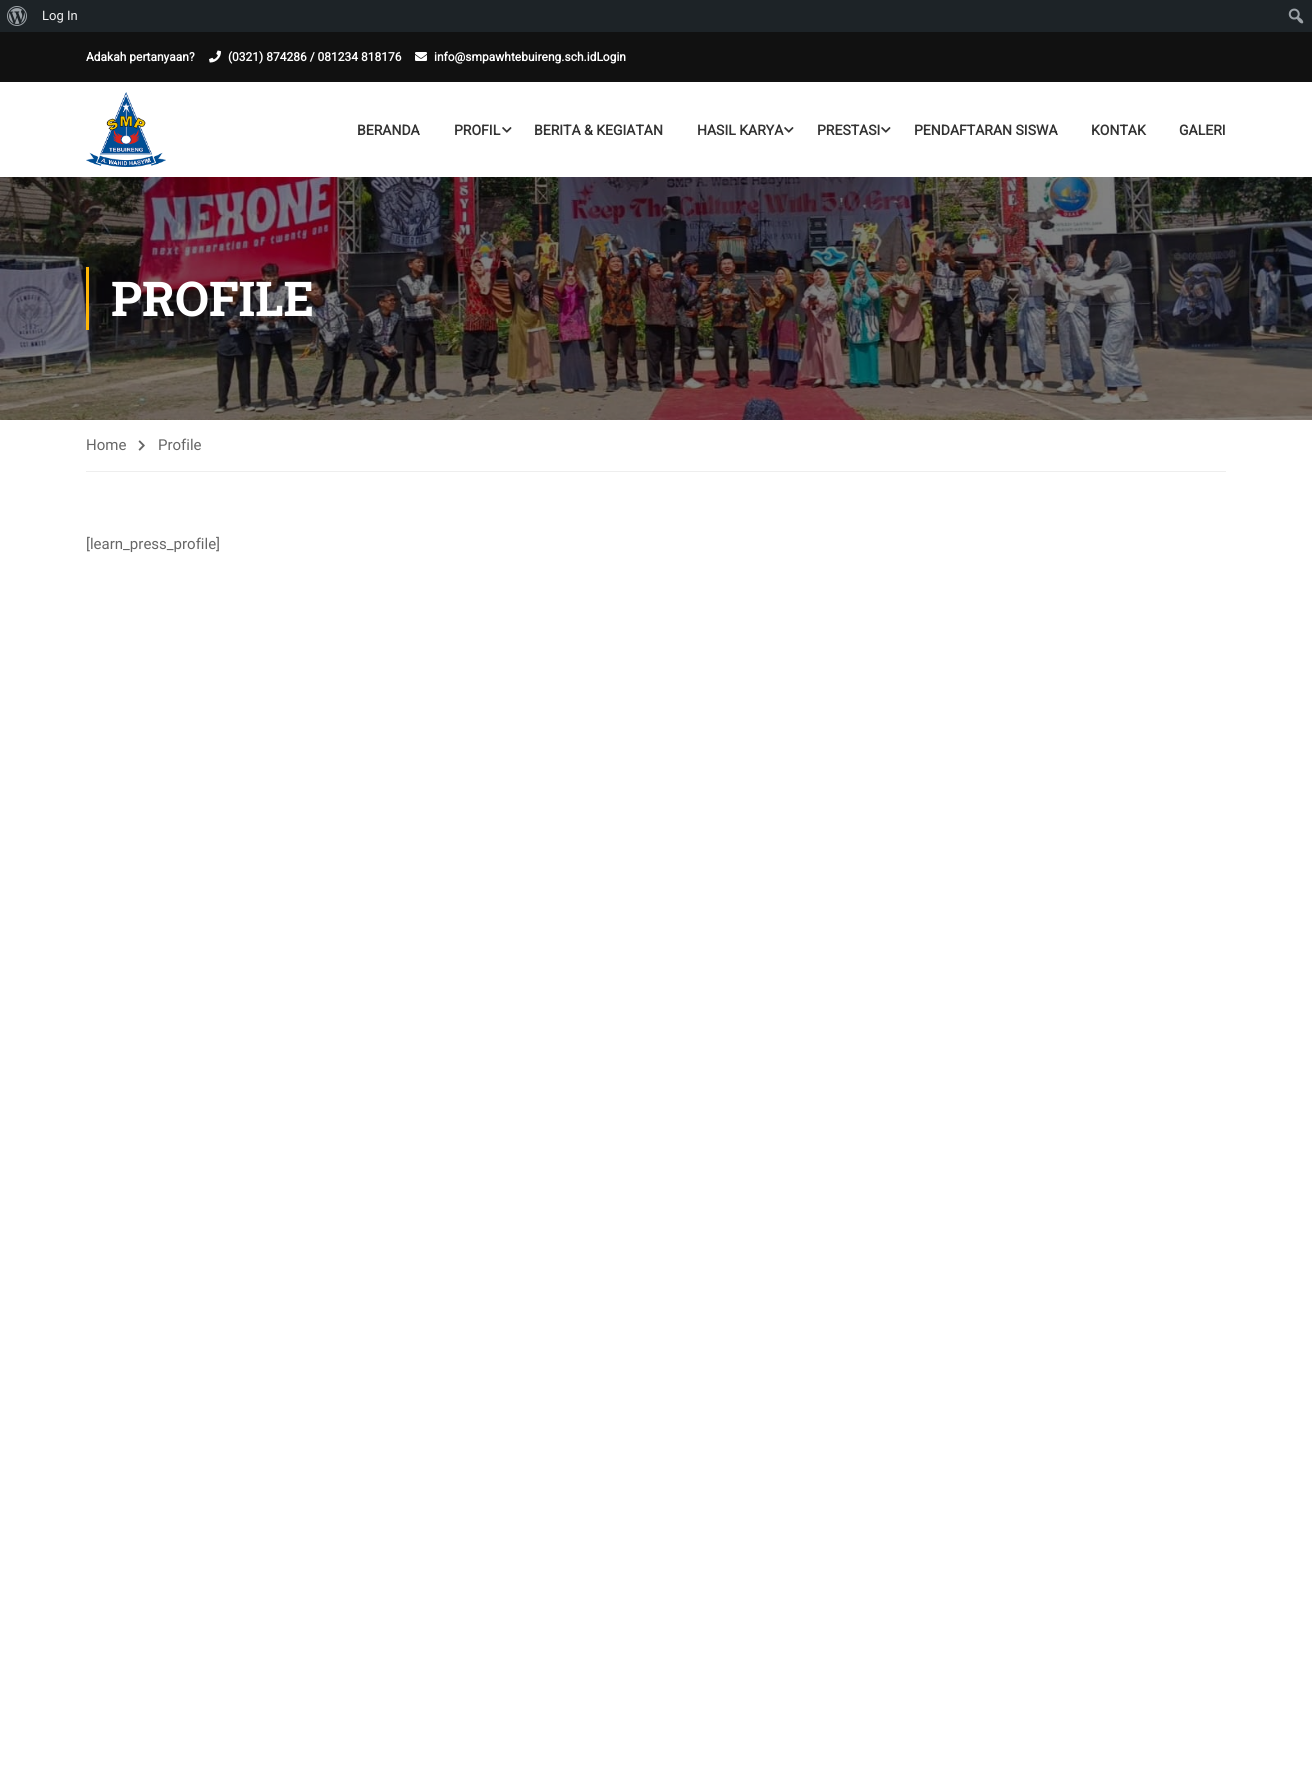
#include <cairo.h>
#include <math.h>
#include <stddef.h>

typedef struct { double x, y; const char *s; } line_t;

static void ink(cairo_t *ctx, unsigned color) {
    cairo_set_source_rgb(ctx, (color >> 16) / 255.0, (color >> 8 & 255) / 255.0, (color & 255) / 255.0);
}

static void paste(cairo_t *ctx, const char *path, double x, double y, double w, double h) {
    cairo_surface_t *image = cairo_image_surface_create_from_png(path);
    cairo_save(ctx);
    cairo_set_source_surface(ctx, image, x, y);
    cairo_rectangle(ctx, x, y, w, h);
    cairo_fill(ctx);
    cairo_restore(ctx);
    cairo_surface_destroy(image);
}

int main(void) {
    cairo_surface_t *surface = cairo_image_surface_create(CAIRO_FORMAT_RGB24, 1312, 1783);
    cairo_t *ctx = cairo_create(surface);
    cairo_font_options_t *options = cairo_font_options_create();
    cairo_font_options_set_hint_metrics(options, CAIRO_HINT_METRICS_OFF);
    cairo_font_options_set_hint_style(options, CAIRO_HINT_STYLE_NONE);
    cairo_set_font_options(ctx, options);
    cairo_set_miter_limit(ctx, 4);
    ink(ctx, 0xFFFFFF);
    cairo_paint(ctx);
    ink(ctx, 0x1D2327);
    cairo_rectangle(ctx, 0, 0, 1312, 32);
    cairo_fill(ctx);
    paste(ctx, "media/1.png", 7, 6, 20, 20);
    cairo_select_font_face(ctx, "Roboto", CAIRO_FONT_SLANT_NORMAL, CAIRO_FONT_WEIGHT_NORMAL);
    cairo_set_font_size(ctx, 13);
    ink(ctx, 0xF0F0F1);
    cairo_move_to(ctx, 42, 20);
    cairo_show_text(ctx, "Log In");
    paste(ctx, "media/2.png", 1288, 8, 16, 16);
    ink(ctx, 0x111111);
    cairo_rectangle(ctx, 0, 32, 1312, 50);
    cairo_fill(ctx);
    cairo_select_font_face(ctx, "Roboto", CAIRO_FONT_SLANT_NORMAL, CAIRO_FONT_WEIGHT_BOLD);
    cairo_set_font_size(ctx, 12);
    ink(ctx, 0xFFFFFF);
    cairo_move_to(ctx, 86, 61);
    cairo_show_text(ctx, "Adakah pertanyaan?");
    paste(ctx, "media/3.png", 209, 50, 12, 13);
    cairo_move_to(ctx, 228, 61);
    cairo_show_text(ctx, "(0321) 874286 / 081234 818176");
    paste(ctx, "media/4.png", 415, 52, 12, 9);
    cairo_move_to(ctx, 434, 61);
    cairo_show_text(ctx, "info@smpawhtebuireng.sch.idLogin");
    paste(ctx, "media/5.png", 86, 92, 80, 75);
    cairo_set_font_size(ctx, 14);
    ink(ctx, 0x333333);
    cairo_move_to(ctx, 357, 135);
    cairo_show_text(ctx, "BERANDA");
    cairo_move_to(ctx, 454, 135);
    cairo_show_text(ctx, "PROFIL");
    paste(ctx, "media/6.png", 502, 127, 10, 6);
    cairo_move_to(ctx, 534, 135);
    cairo_show_text(ctx, "BERITA & KEGIATAN");
    cairo_move_to(ctx, 697, 135);
    cairo_show_text(ctx, "HASIL KARYA");
    paste(ctx, "media/6.png", 784, 127, 10, 6);
    cairo_move_to(ctx, 817, 135);
    cairo_show_text(ctx, "PRESTASI");
    paste(ctx, "media/6.png", 881, 127, 10, 6);
    {
        static const line_t items[] = {
            {914, 135, "PENDAFTARAN SISWA"},
            {1091, 135, "KONTAK"},
            {1179, 135, "GALERI"},
        };
        for (size_t i = 0; i < sizeof items / sizeof *items; i++) {
            cairo_move_to(ctx, items[i].x, items[i].y);
            cairo_show_text(ctx, items[i].s);
        }
    }
    paste(ctx, "media/7.png", 0, 177, 1312, 243);
    ink(ctx, 0xFFB606);
    cairo_rectangle(ctx, 86, 267, 3, 63);
    cairo_fill(ctx);
    cairo_select_font_face(ctx, "Roboto Slab", CAIRO_FONT_SLANT_NORMAL, CAIRO_FONT_WEIGHT_BOLD);
    cairo_set_font_size(ctx, 48);
    ink(ctx, 0xFFFFFF);
    cairo_move_to(ctx, 111, 316);
    cairo_show_text(ctx, "PROFILE");
    ink(ctx, 0xEEEEEE);
    cairo_rectangle(ctx, 86, 471, 1140, 1);
    cairo_fill(ctx);
    cairo_select_font_face(ctx, "Roboto", CAIRO_FONT_SLANT_NORMAL, CAIRO_FONT_WEIGHT_NORMAL);
    cairo_set_font_size(ctx, 15);
    ink(ctx, 0x666666);
    cairo_move_to(ctx, 86, 450);
    cairo_show_text(ctx, "Home");
    paste(ctx, "media/8.png", 138, 440, 7, 11);
    cairo_move_to(ctx, 158, 450);
    cairo_show_text(ctx, "Profile");
    cairo_move_to(ctx, 86, 549);
    cairo_show_text(ctx, "[learn_press_profile]");
    cairo_surface_write_to_png(surface, "image.png");
    cairo_font_options_destroy(options);
    cairo_destroy(ctx);
    cairo_surface_destroy(surface);
    return 0;
}
